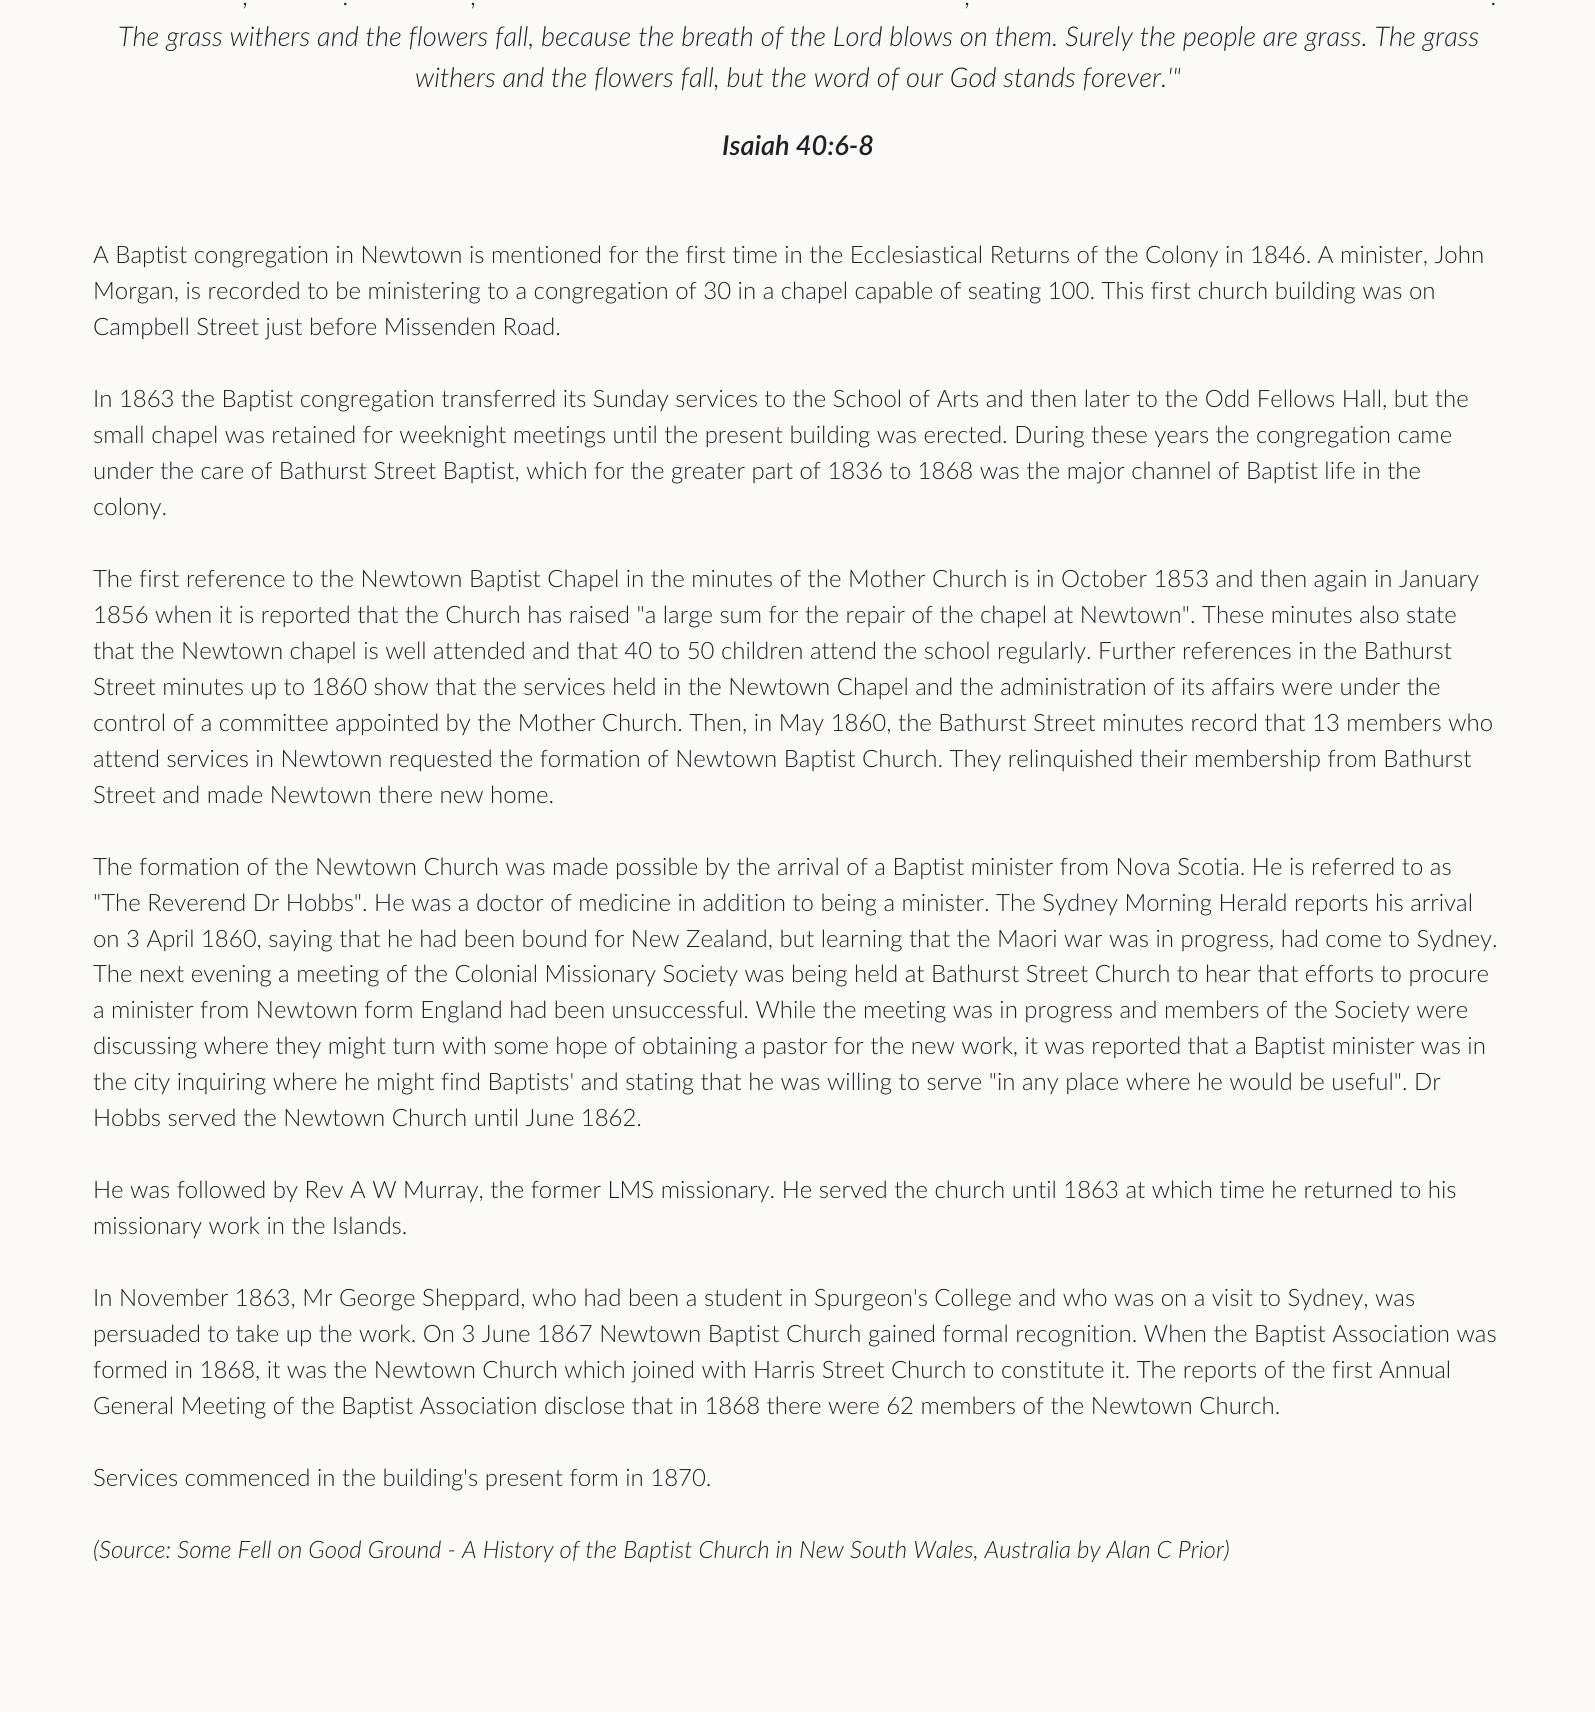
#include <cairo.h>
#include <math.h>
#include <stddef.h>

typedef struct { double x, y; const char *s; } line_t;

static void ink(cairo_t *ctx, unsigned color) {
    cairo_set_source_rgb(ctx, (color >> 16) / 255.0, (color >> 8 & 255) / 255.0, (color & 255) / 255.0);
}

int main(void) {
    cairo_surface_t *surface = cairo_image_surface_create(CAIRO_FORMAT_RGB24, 1595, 1712);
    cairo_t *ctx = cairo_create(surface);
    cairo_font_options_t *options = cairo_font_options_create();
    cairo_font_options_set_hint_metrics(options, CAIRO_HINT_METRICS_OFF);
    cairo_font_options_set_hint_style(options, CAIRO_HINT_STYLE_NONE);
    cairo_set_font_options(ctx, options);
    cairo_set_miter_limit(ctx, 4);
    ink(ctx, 0xFBFAF9);
    cairo_paint(ctx);
    cairo_select_font_face(ctx, "Lato Light", CAIRO_FONT_SLANT_ITALIC, CAIRO_FONT_WEIGHT_NORMAL);
    cairo_set_font_size(ctx, 27.25);
    ink(ctx, 0x241F24);
    {
        static const line_t items[] = {
            {243, 5, ","},
            {343, 5, "."},
            {471, 5, ","},
            {965, 5, ","},
            {1491, 5, "."},
            {118, 46, "The grass withers and the flowers fall, because the breath of the Lord blows on them. Surely the people are grass. The grass"},
            {415, 87, "withers and the flowers fall, but the word of our God stands forever.'\""},
        };
        for (size_t i = 0; i < sizeof items / sizeof *items; i++) {
            cairo_move_to(ctx, items[i].x, items[i].y);
            cairo_show_text(ctx, items[i].s);
        }
    }
    cairo_select_font_face(ctx, "Lato SemiBold", CAIRO_FONT_SLANT_ITALIC, CAIRO_FONT_WEIGHT_NORMAL);
    cairo_move_to(ctx, 722, 155);
    cairo_show_text(ctx, "Isaiah 40:6-8");
    cairo_select_font_face(ctx, "Lato Light", CAIRO_FONT_SLANT_NORMAL, CAIRO_FONT_WEIGHT_NORMAL);
    cairo_set_font_size(ctx, 24);
    {
        static const line_t items[] = {
            {93, 263, "A Baptist congregation in Newtown is mentioned for the first time in the Ecclesiastical Returns of the Colony in 1846. A minister, John"},
            {93, 299, "Morgan, is recorded to be ministering to a congregation of 30 in a chapel capable of seating 100. This first church building was on"},
            {93, 335, "Campbell Street just before Missenden Road."},
        };
        for (size_t i = 0; i < sizeof items / sizeof *items; i++) {
            cairo_move_to(ctx, items[i].x, items[i].y);
            cairo_show_text(ctx, items[i].s);
        }
    }
    cairo_set_font_size(ctx, 23.97);
    {
        static const line_t items[] = {
            {93, 407, "In 1863 the Baptist congregation transferred its Sunday services to the School of Arts and then later to the Odd Fellows Hall, but the"},
            {93, 443, "small chapel was retained for weeknight meetings until the present building was erected. During these years the congregation came"},
            {93, 479, "under the care of Bathurst Street Baptist, which for the greater part of 1836 to 1868 was the major channel of Baptist life in the"},
            {93, 515, "colony."},
            {93, 587, "The first reference to the Newtown Baptist Chapel in the minutes of the Mother Church is in October 1853 and then again in January"},
            {93, 623, "1856 when it is reported that the Church has raised \"a large sum for the repair of the chapel at Newtown\". These minutes also state"},
            {93, 659, "that the Newtown chapel is well attended and that 40 to 50 children attend the school regularly. Further references in the Bathurst"},
            {93, 695, "Street minutes up to 1860 show that the services held in the Newtown Chapel and the administration of its affairs were under the"},
            {93, 731, "control of a committee appointed by the Mother Church. Then, in May 1860, the Bathurst Street minutes record that 13 members who"},
            {93, 767, "attend services in Newtown requested the formation of Newtown Baptist Church. They relinquished their membership from Bathurst"},
            {93, 803, "Street and made Newtown there new home."},
            {93, 875, "The formation of the Newtown Church was made possible by the arrival of a Baptist minister from Nova Scotia. He is referred to as"},
            {93, 911, "\"The Reverend Dr Hobbs\". He was a doctor of medicine in addition to being a minister. The Sydney Morning Herald reports his arrival"},
            {93, 947, "on 3 April 1860, saying that he had been bound for New Zealand, but learning that the Maori war was in progress, had come to Sydney."},
            {93, 982, "The next evening a meeting of the Colonial Missionary Society was being held at Bathurst Street Church to hear that efforts to procure"},
            {93, 1018, "a minister from Newtown form England had been unsuccessful. While the meeting was in progress and members of the Society were"},
            {93, 1054, "discussing where they might turn with some hope of obtaining a pastor for the new work, it was reported that a Baptist minister was in"},
            {93, 1090, "the city inquiring where he might find Baptists' and stating that he was willing to serve \"in any place where he would be useful\". Dr"},
            {93, 1126, "Hobbs served the Newtown Church until June 1862."},
            {93, 1198, "He was followed by Rev A W Murray, the former LMS missionary. He served the church until 1863 at which time he returned to his"},
            {93, 1234, "missionary work in the Islands."},
            {93, 1306, "In November 1863, Mr George Sheppard, who had been a student in Spurgeon's College and who was on a visit to Sydney, was"},
            {93, 1342, "persuaded to take up the work. On 3 June 1867 Newtown Baptist Church gained formal recognition. When the Baptist Association was"},
            {93, 1378, "formed in 1868, it was the Newtown Church which joined with Harris Street Church to constitute it. The reports of the first Annual"},
            {93, 1414, "General Meeting of the Baptist Association disclose that in 1868 there were 62 members of the Newtown Church."},
            {93, 1486, "Services commenced in the building's present form in 1870."},
        };
        for (size_t i = 0; i < sizeof items / sizeof *items; i++) {
            cairo_move_to(ctx, items[i].x, items[i].y);
            cairo_show_text(ctx, items[i].s);
        }
    }
    cairo_select_font_face(ctx, "Lato Light", CAIRO_FONT_SLANT_ITALIC, CAIRO_FONT_WEIGHT_NORMAL);
    cairo_set_font_size(ctx, 24);
    cairo_move_to(ctx, 93, 1558);
    cairo_show_text(ctx, "(Source: Some Fell on Good Ground - A History of the Baptist Church in New South Wales, Australia by Alan C Prior)");
    cairo_surface_write_to_png(surface, "image.png");
    cairo_font_options_destroy(options);
    cairo_destroy(ctx);
    cairo_surface_destroy(surface);
    return 0;
}
